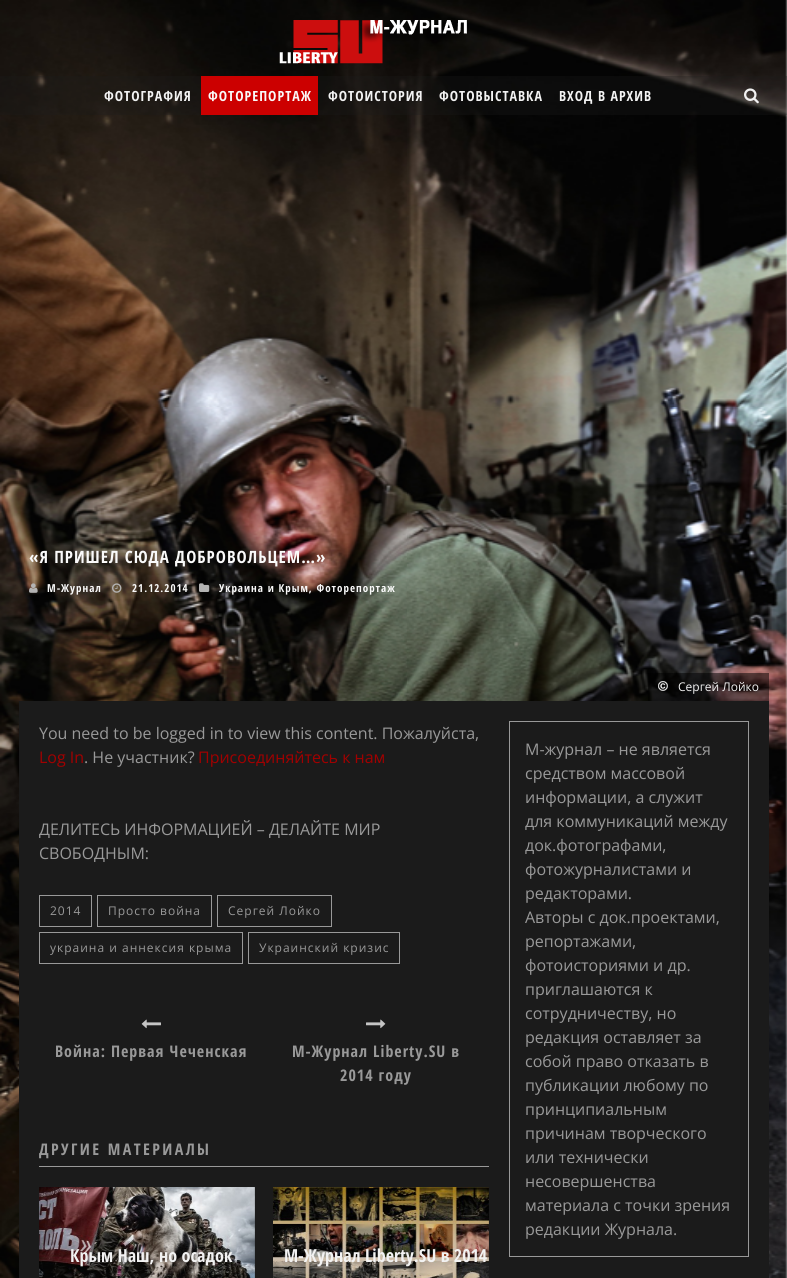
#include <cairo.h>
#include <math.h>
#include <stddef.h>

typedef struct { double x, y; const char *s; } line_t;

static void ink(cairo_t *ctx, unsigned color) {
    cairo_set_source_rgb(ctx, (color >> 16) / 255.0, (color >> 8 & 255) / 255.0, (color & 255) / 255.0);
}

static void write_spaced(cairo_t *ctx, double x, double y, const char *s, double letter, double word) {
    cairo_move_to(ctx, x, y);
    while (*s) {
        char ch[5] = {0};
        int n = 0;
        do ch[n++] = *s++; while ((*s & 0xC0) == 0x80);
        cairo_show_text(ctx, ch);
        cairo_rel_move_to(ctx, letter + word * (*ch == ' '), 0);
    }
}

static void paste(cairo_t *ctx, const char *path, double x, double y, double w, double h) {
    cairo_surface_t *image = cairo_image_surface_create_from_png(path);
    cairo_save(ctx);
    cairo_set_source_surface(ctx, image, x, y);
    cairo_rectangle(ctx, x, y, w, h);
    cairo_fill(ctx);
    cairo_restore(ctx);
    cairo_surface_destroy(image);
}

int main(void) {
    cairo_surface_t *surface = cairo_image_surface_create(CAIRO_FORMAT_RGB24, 787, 1278);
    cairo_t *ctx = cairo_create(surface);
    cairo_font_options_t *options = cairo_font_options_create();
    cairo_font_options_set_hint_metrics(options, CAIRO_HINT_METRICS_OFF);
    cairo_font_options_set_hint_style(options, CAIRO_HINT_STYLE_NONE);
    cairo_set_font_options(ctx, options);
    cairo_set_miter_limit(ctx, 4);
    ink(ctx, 0xFFFFFF);
    cairo_paint(ctx);
    paste(ctx, "media/3.png", 0, 0, 787, 1278);
    paste(ctx, "media/1.png", 279, 20, 188, 44);
    cairo_set_source_rgba(ctx, 0.106, 0.106, 0.106, 0.3);
    cairo_rectangle(ctx, 0, 76, 787, 39);
    cairo_fill(ctx);
    cairo_select_font_face(ctx, "Open Sans Condensed", CAIRO_FONT_SLANT_NORMAL, CAIRO_FONT_WEIGHT_BOLD);
    cairo_set_font_size(ctx, 14);
    ink(ctx, 0xF2F2F2);
    write_spaced(ctx, 104, 101, "ФОТОГРАФИЯ", 1, 0);
    ink(ctx, 0xCC0000);
    cairo_rectangle(ctx, 201, 76, 117, 39);
    cairo_fill(ctx);
    ink(ctx, 0xFAFAFA);
    write_spaced(ctx, 208, 101, "ФОТОРЕПОРТАЖ", 1, 0);
    ink(ctx, 0xF2F2F2);
    {
        static const line_t items[] = {
            {328, 101, "ФОТОИСТОРИЯ"},
            {439, 101, "ФОТОВЫСТАВКА"},
            {559, 101, "ВХОД В АРХИВ"},
        };
        for (size_t i = 0; i < sizeof items / sizeof *items; i++) {
            write_spaced(ctx, items[i].x, items[i].y, items[i].s, 1, 0);
        }
    }
    paste(ctx, "media/2.png", 744, 88, 15, 16);
    cairo_set_font_size(ctx, 17);
    ink(ctx, 0xFAFAFA);
    write_spaced(ctx, 29, 563, "«Я ПРИШЕЛ СЮДА ДОБРОВОЛЬЦЕМ…»", 1, 0);
    paste(ctx, "media/4.png", 29, 583, 9, 10);
    cairo_set_font_size(ctx, 11);
    write_spaced(ctx, 47, 592, "М-Журнал", 1, 0);
    paste(ctx, "media/5.png", 112, 583, 10, 10);
    write_spaced(ctx, 132, 592, "21.12.2014", 1, 0);
    paste(ctx, "media/6.png", 199, 583, 11, 9);
    write_spaced(ctx, 219, 592, "Украина и Крым, Фоторепортаж", 1, 0);
    cairo_set_source_rgba(ctx, 0, 0, 0, 0.5);
    cairo_rectangle(ctx, 648, 673, 121, 28);
    cairo_fill(ctx);
    paste(ctx, "media/7.png", 658, 681, 10, 10);
    cairo_select_font_face(ctx, "Open Sans", CAIRO_FONT_SLANT_NORMAL, CAIRO_FONT_WEIGHT_NORMAL);
    cairo_set_font_size(ctx, 12);
    ink(ctx, 0xF2F2F2);
    cairo_move_to(ctx, 678, 691);
    cairo_show_text(ctx, "Сергей Лойко");
    ink(ctx, 0x1B1B1B);
    cairo_rectangle(ctx, 19, 701, 750, 577);
    cairo_fill(ctx);
    cairo_set_font_size(ctx, 16);
    ink(ctx, 0x999999);
    cairo_move_to(ctx, 39, 739);
    cairo_show_text(ctx, "You need to be logged in to view this content. Пожалуйста,");
    ink(ctx, 0xA10000);
    cairo_move_to(ctx, 39, 763);
    cairo_show_text(ctx, "Log In");
    ink(ctx, 0x999999);
    cairo_move_to(ctx, 84, 763);
    cairo_show_text(ctx, ". Не участник?");
    ink(ctx, 0xA10000);
    cairo_move_to(ctx, 198, 763);
    cairo_show_text(ctx, "Присоединяйтесь к нам");
    ink(ctx, 0x999999);
    cairo_move_to(ctx, 39, 835);
    cairo_show_text(ctx, "ДЕЛИТЕСЬ ИНФОРМАЦИЕЙ – ДЕЛАЙТЕ МИР");
    cairo_move_to(ctx, 39, 859);
    cairo_show_text(ctx, "СВОБОДНЫМ:");
    cairo_rectangle(ctx, 39.5, 895.5, 52, 31);
    cairo_set_line_width(ctx, 1);
    cairo_stroke(ctx);
    cairo_set_font_size(ctx, 12);
    write_spaced(ctx, 50, 915, "2014", 1, 0);
    cairo_rectangle(ctx, 97.5, 895.5, 114, 31);
    cairo_stroke(ctx);
    write_spaced(ctx, 108, 915, "Просто война", 1, 0);
    cairo_rectangle(ctx, 217.5, 895.5, 114, 31);
    cairo_stroke(ctx);
    write_spaced(ctx, 228, 915, "Сергей Лойко", 1, 0);
    cairo_rectangle(ctx, 39.5, 932.5, 203, 31);
    cairo_stroke(ctx);
    write_spaced(ctx, 50, 952, "украина и аннексия крыма", 1, 0);
    cairo_rectangle(ctx, 248.5, 932.5, 151, 31);
    cairo_stroke(ctx);
    write_spaced(ctx, 259, 952, "Украинский кризис", 1, 0);
    paste(ctx, "media/8.png", 141, 1019, 20, 10);
    cairo_select_font_face(ctx, "Open Sans Condensed", CAIRO_FONT_SLANT_NORMAL, CAIRO_FONT_WEIGHT_BOLD);
    cairo_set_font_size(ctx, 16);
    write_spaced(ctx, 55, 1057, "Война: Первая Чеченская", 1, 0);
    paste(ctx, "media/9.png", 366, 1019, 20, 10);
    write_spaced(ctx, 292, 1057, "М-Журнал Liberty.SU в", 1, 0);
    write_spaced(ctx, 340, 1081, "2014 году", 1, 0);
    cairo_rectangle(ctx, 39, 1166, 450, 1);
    cairo_fill(ctx);
    write_spaced(ctx, 39, 1155, "ДРУГИЕ МАТЕРИАЛЫ", 2.4, 0);
    paste(ctx, "media/10.png", 39, 1187, 216, 91);
    cairo_set_font_size(ctx, 18);
    ink(ctx, 0xF2F2F2);
    cairo_move_to(ctx, 70, 1262);
    cairo_show_text(ctx, "Крым Наш, но осадок");
    paste(ctx, "media/11.png", 273, 1187, 216, 91);
    cairo_move_to(ctx, 284, 1262);
    cairo_show_text(ctx, "М-Журнал Liberty.SU в 2014");
    cairo_rectangle(ctx, 509.5, 721.5, 239, 535);
    ink(ctx, 0x999999);
    cairo_stroke(ctx);
    cairo_select_font_face(ctx, "Open Sans", CAIRO_FONT_SLANT_NORMAL, CAIRO_FONT_WEIGHT_NORMAL);
    cairo_set_font_size(ctx, 16);
    {
        static const line_t items[] = {
            {525, 755, "М-журнал – не является"},
            {525, 779, "средством массовой"},
            {525, 803, "информации, а служит"},
            {525, 827, "для коммуникаций между"},
            {525, 851, "док.фотографами,"},
            {525, 875, "фотожурналистами и"},
            {525, 899, "редакторами."},
            {525, 923, "Авторы с док.проектами,"},
            {525, 947, "репортажами,"},
            {525, 971, "фотоисториями и др."},
            {525, 995, "приглашаются к"},
            {525, 1019, "сотрудничеству, но"},
            {525, 1043, "редакция оставляет за"},
            {525, 1067, "собой право отказать в"},
            {525, 1091, "публикации любому по"},
            {525, 1115, "принципиальным"},
            {525, 1139, "причинам творческого"},
            {525, 1163, "или технически"},
            {525, 1187, "несовершенства"},
            {525, 1211, "материала с точки зрения"},
            {525, 1235, "редакции Журнала."},
        };
        for (size_t i = 0; i < sizeof items / sizeof *items; i++) {
            cairo_move_to(ctx, items[i].x, items[i].y);
            cairo_show_text(ctx, items[i].s);
        }
    }
    cairo_surface_write_to_png(surface, "image.png");
    cairo_font_options_destroy(options);
    cairo_destroy(ctx);
    cairo_surface_destroy(surface);
    return 0;
}
